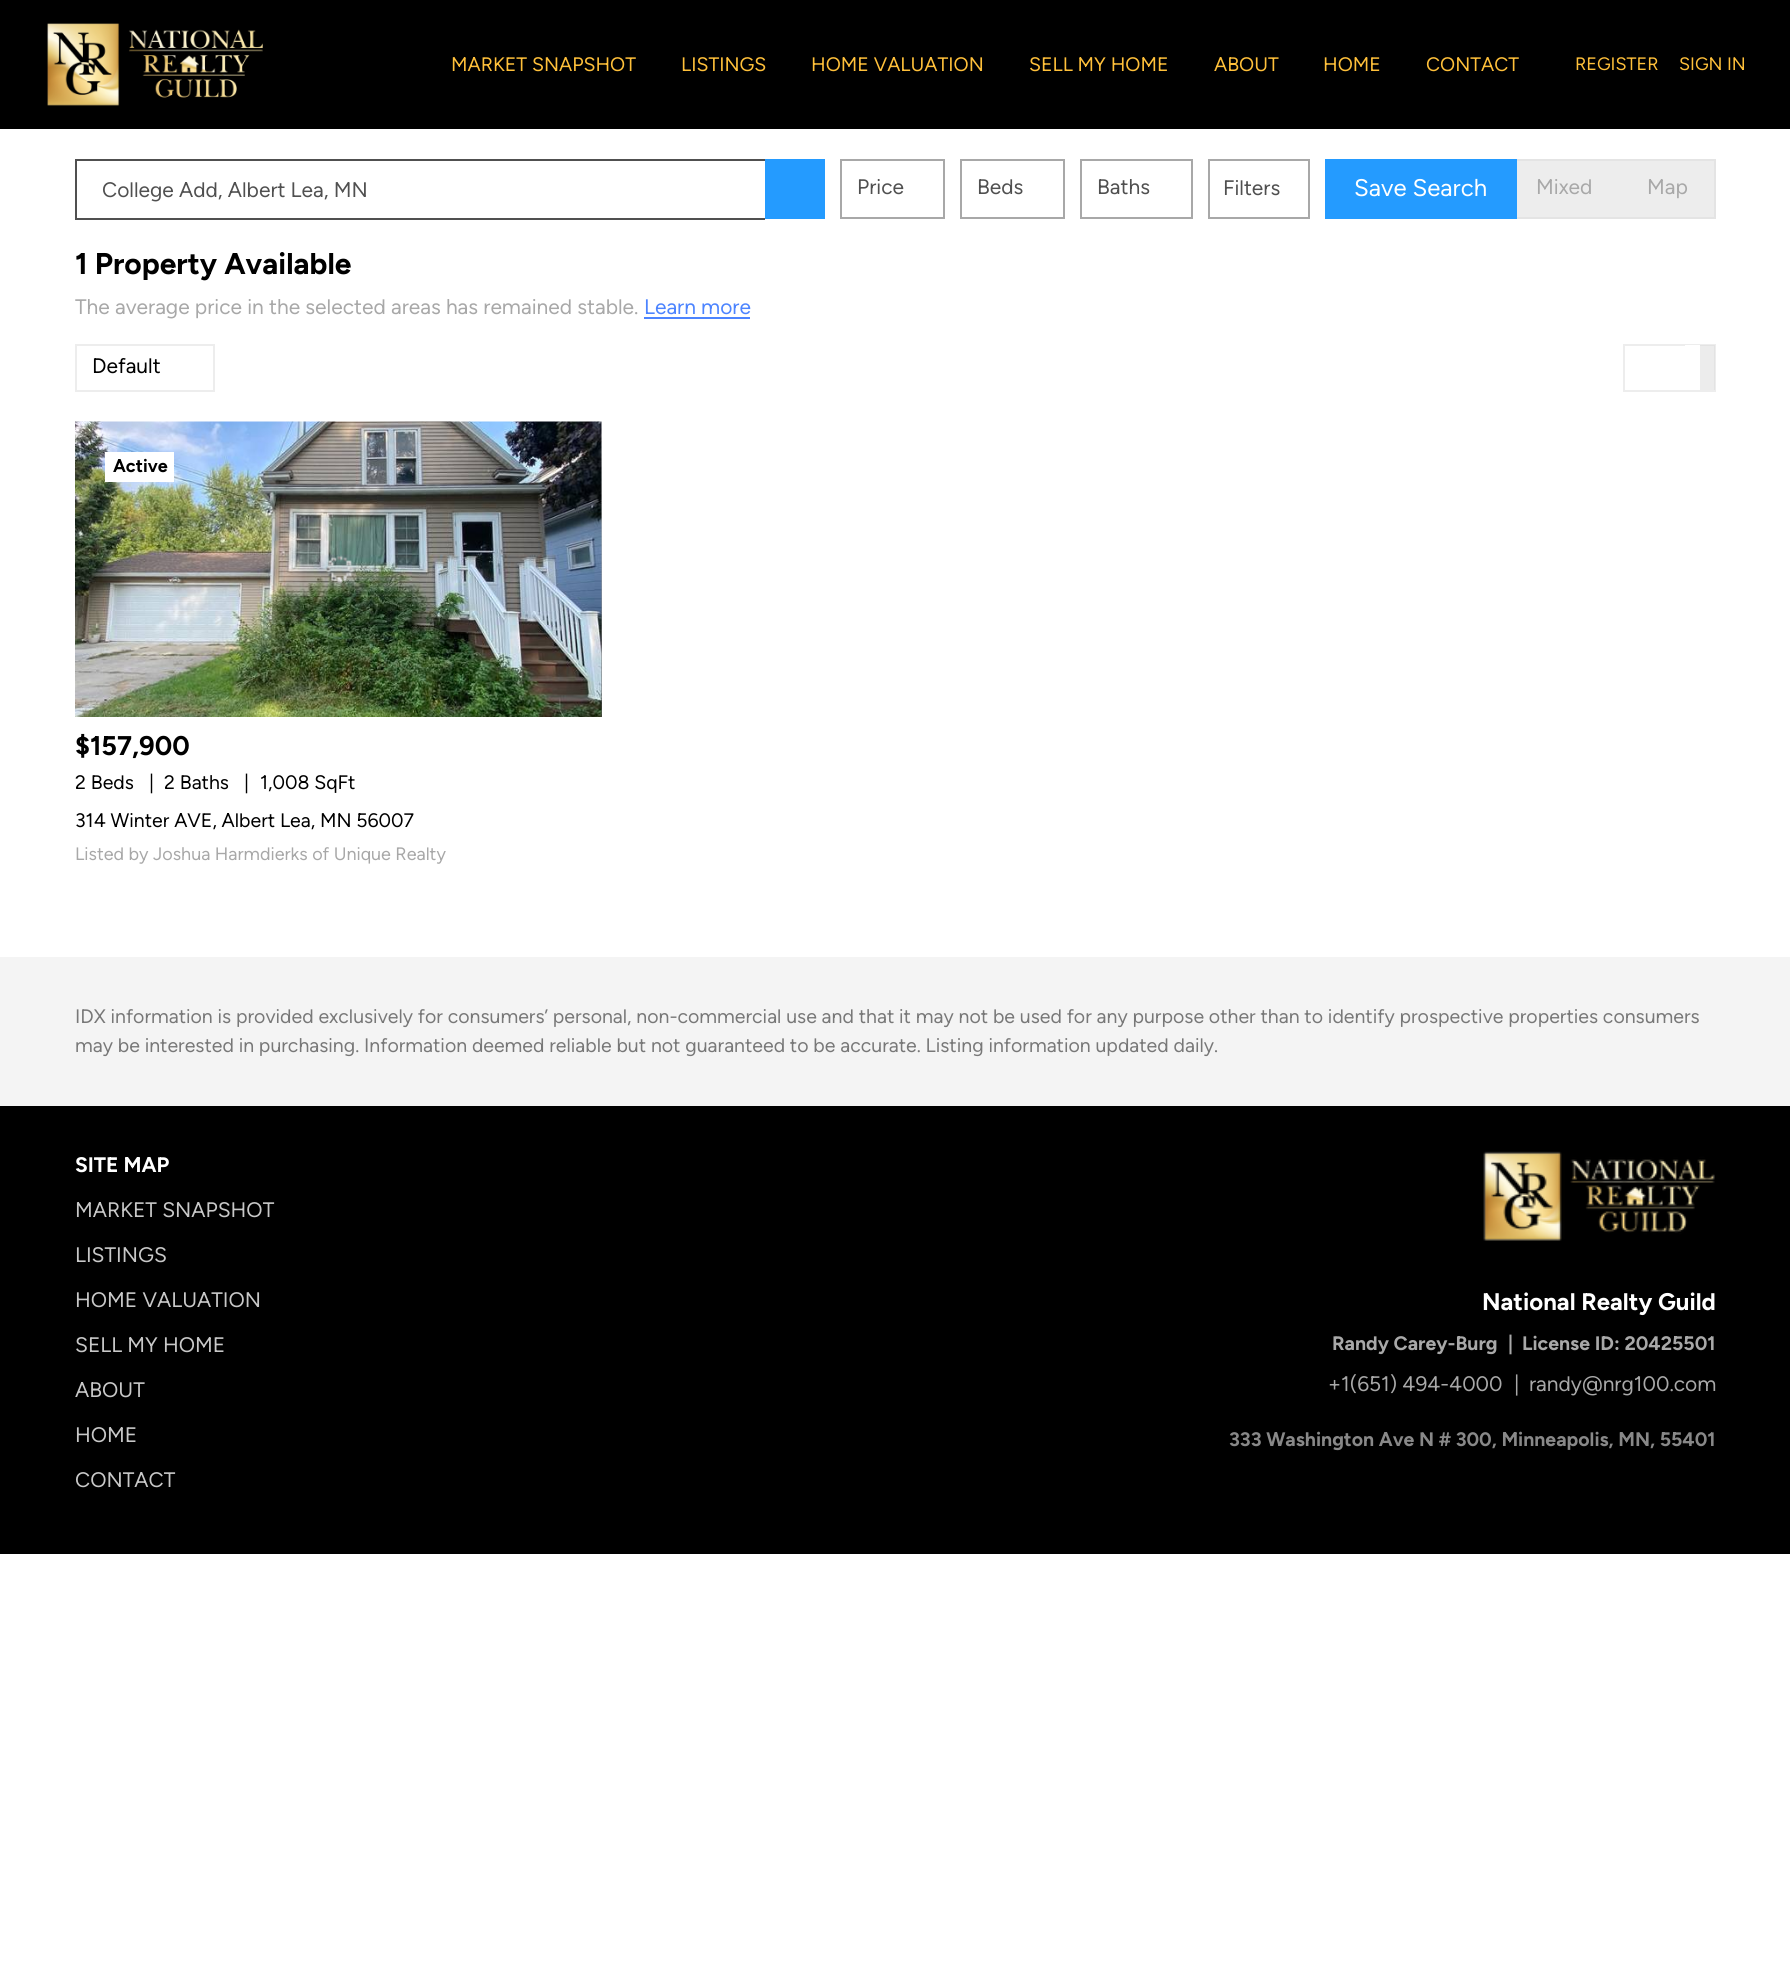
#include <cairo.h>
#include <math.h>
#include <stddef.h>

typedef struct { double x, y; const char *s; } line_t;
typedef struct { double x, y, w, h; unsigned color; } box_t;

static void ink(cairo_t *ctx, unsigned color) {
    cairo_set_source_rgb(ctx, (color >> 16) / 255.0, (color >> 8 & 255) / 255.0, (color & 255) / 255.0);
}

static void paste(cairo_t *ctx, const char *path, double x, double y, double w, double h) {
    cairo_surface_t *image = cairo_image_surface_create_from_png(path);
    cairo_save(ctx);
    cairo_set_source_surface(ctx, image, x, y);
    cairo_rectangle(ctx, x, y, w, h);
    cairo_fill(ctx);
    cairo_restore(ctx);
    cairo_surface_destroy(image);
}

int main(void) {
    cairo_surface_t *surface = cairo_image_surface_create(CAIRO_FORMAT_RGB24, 1790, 1965);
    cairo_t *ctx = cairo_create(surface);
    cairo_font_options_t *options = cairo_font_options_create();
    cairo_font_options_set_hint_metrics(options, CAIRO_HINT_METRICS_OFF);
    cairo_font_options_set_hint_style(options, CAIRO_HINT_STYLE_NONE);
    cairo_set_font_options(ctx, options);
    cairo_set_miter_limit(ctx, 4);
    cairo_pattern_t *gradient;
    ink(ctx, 0xFFFFFF);
    cairo_paint(ctx);
    ink(ctx, 0x000000);
    cairo_rectangle(ctx, 0, 0, 1790, 129);
    cairo_fill(ctx);
    paste(ctx, "media/1.png", 47, 23, 216, 83);
    cairo_select_font_face(ctx, "Figtree", CAIRO_FONT_SLANT_NORMAL, CAIRO_FONT_WEIGHT_NORMAL);
    cairo_set_font_size(ctx, 19.5);
    ink(ctx, 0xFFC03A);
    {
        static const line_t items[] = {
            {451, 71, "MARKET SNAPSHOT"},
            {681, 71, "LISTINGS"},
            {811, 71, "HOME VALUATION"},
            {1029, 71, "SELL MY HOME"},
            {1214, 71, "ABOUT"},
            {1323, 71, "HOME"},
            {1426, 71, "CONTACT"},
        };
        for (size_t i = 0; i < sizeof items / sizeof *items; i++) {
            cairo_move_to(ctx, items[i].x, items[i].y);
            cairo_show_text(ctx, items[i].s);
        }
    }
    cairo_set_font_size(ctx, 18);
    cairo_move_to(ctx, 1575, 70);
    cairo_show_text(ctx, "REGISTER");
    cairo_move_to(ctx, 1679, 70);
    cairo_show_text(ctx, "SIGN IN");
    {
        static const box_t items[] = {
            {75, 159, 690, 2, 0x505050},
            {75, 218, 690, 2, 0x505050},
            {75, 159, 2, 60, 0x505050},
            {765, 159, 60, 60, 0x249BFF},
        };
        for (size_t i = 0; i < sizeof items / sizeof *items; i++) {
            ink(ctx, items[i].color);
            cairo_rectangle(ctx, items[i].x, items[i].y, items[i].w, items[i].h);
            cairo_fill(ctx);
        }
    }
    cairo_set_font_size(ctx, 21);
    ink(ctx, 0x505050);
    cairo_move_to(ctx, 102, 197);
    cairo_show_text(ctx, "College Add, Albert Lea, MN");
    cairo_rectangle(ctx, 841, 160, 103, 58);
    ink(ctx, 0xA8A8A8);
    cairo_stroke(ctx);
    ink(ctx, 0x505050);
    cairo_move_to(ctx, 857, 194);
    cairo_show_text(ctx, "Price");
    cairo_rectangle(ctx, 961, 160, 103, 58);
    ink(ctx, 0xA8A8A8);
    cairo_stroke(ctx);
    ink(ctx, 0x505050);
    cairo_move_to(ctx, 977, 194);
    cairo_show_text(ctx, "Beds");
    cairo_rectangle(ctx, 1081, 160, 111, 58);
    ink(ctx, 0xA8A8A8);
    cairo_stroke(ctx);
    ink(ctx, 0x505050);
    cairo_move_to(ctx, 1097, 194);
    cairo_show_text(ctx, "Baths");
    cairo_rectangle(ctx, 1209, 160, 100, 58);
    ink(ctx, 0xA8A8A8);
    cairo_stroke(ctx);
    ink(ctx, 0x505050);
    cairo_move_to(ctx, 1223, 195);
    cairo_show_text(ctx, "Filters");
    ink(ctx, 0xEDEDED);
    cairo_rectangle(ctx, 1517, 161, 197, 56);
    cairo_fill(ctx);
    cairo_rectangle(ctx, 1422, 160, 293, 58);
    ink(ctx, 0xE4E4E4);
    cairo_stroke(ctx);
    ink(ctx, 0x249BFF);
    cairo_rectangle(ctx, 1325, 159, 192, 60);
    cairo_fill(ctx);
    cairo_set_font_size(ctx, 24);
    ink(ctx, 0xFFFFFF);
    cairo_move_to(ctx, 1354, 196);
    cairo_show_text(ctx, "Save Search");
    cairo_set_font_size(ctx, 21);
    ink(ctx, 0xA8A8A8);
    cairo_move_to(ctx, 1536, 194);
    cairo_show_text(ctx, "Mixed");
    cairo_move_to(ctx, 1647, 194);
    cairo_show_text(ctx, "Map");
    cairo_select_font_face(ctx, "Figtree", CAIRO_FONT_SLANT_NORMAL, CAIRO_FONT_WEIGHT_BOLD);
    cairo_set_font_size(ctx, 30);
    ink(ctx, 0x000000);
    cairo_move_to(ctx, 75, 274);
    cairo_show_text(ctx, "1 Property Available");
    cairo_select_font_face(ctx, "Figtree", CAIRO_FONT_SLANT_NORMAL, CAIRO_FONT_WEIGHT_NORMAL);
    cairo_set_font_size(ctx, 21);
    ink(ctx, 0xA8A8A8);
    cairo_move_to(ctx, 75, 314);
    cairo_show_text(ctx, "The average price in the selected areas has remained stable.");
    ink(ctx, 0x4C84FF);
    cairo_move_to(ctx, 644, 314);
    cairo_show_text(ctx, "Learn more");
    cairo_rectangle(ctx, 644, 317, 106, 2);
    cairo_fill(ctx);
    cairo_rectangle(ctx, 76, 345, 138, 46);
    ink(ctx, 0xEDEDED);
    cairo_stroke(ctx);
    ink(ctx, 0x000000);
    cairo_move_to(ctx, 92, 373);
    cairo_show_text(ctx, "Default");
    cairo_rectangle(ctx, 1624, 345, 91, 46);
    ink(ctx, 0xEDEDED);
    cairo_stroke(ctx);
    ink(ctx, 0xFFFFFF);
    cairo_rectangle(ctx, 1685, 345, 15, 1);
    cairo_fill(ctx);
    cairo_set_source_rgba(ctx, 0.855, 0.855, 0.855, 0.5);
    cairo_rectangle(ctx, 1700, 345, 15, 45);
    cairo_fill(ctx);
    gradient = cairo_pattern_create_linear(338, 422, 338, 717);
    cairo_pattern_add_color_stop_rgba(gradient, 0, 1, 1, 1, 1);
    cairo_pattern_add_color_stop_rgba(gradient, 1, 0.302, 0.302, 0.302, 1);
    cairo_set_source(ctx, gradient);
    cairo_pattern_destroy(gradient);
    cairo_rectangle(ctx, 601, 422, 1, 295);
    cairo_fill(ctx);
    paste(ctx, "media/2.png", 75, 421, 527, 296);
    paste(ctx, "media/3.png", 326, 555, 28, 28);
    ink(ctx, 0xFFFFFF);
    cairo_rectangle(ctx, 105, 452, 69, 30);
    cairo_fill(ctx);
    cairo_select_font_face(ctx, "Figtree", CAIRO_FONT_SLANT_NORMAL, CAIRO_FONT_WEIGHT_BOLD);
    cairo_set_font_size(ctx, 18);
    ink(ctx, 0x000000);
    cairo_move_to(ctx, 113, 472);
    cairo_show_text(ctx, "Active");
    cairo_set_font_size(ctx, 27);
    cairo_move_to(ctx, 75, 755);
    cairo_show_text(ctx, "$157,900");
    cairo_select_font_face(ctx, "Figtree", CAIRO_FONT_SLANT_NORMAL, CAIRO_FONT_WEIGHT_NORMAL);
    cairo_set_font_size(ctx, 19.5);
    {
        static const line_t items[] = {
            {75, 789, "2 Beds"},
            {149, 789, "|"},
            {164, 789, "2 Baths"},
            {244, 789, "|"},
            {260, 789, "1,008 SqFt"},
            {75, 827, "314 Winter AVE, Albert Lea, MN 56007"},
        };
        for (size_t i = 0; i < sizeof items / sizeof *items; i++) {
            cairo_move_to(ctx, items[i].x, items[i].y);
            cairo_show_text(ctx, items[i].s);
        }
    }
    cairo_set_font_size(ctx, 18);
    ink(ctx, 0xA8A8A8);
    cairo_move_to(ctx, 75, 860);
    cairo_show_text(ctx, "Listed by Joshua Harmdierks of Unique Realty");
    ink(ctx, 0xF4F4F4);
    cairo_rectangle(ctx, 0, 957, 1790, 149);
    cairo_fill(ctx);
    cairo_set_font_size(ctx, 19.5);
    ink(ctx, 0x787878);
    cairo_move_to(ctx, 75, 1023);
    cairo_show_text(ctx, "IDX information is provided exclusively for consumers’ personal, non-commercial use and that it may not be used for any purpose other than to identify prospective properties consumers");
    cairo_move_to(ctx, 75, 1052);
    cairo_show_text(ctx, "may be interested in purchasing. Information deemed reliable but not guaranteed to be accurate. Listing information updated daily.");
    ink(ctx, 0x000000);
    cairo_rectangle(ctx, 0, 1106, 1790, 448);
    cairo_fill(ctx);
    cairo_select_font_face(ctx, "Figtree", CAIRO_FONT_SLANT_NORMAL, CAIRO_FONT_WEIGHT_BOLD);
    cairo_set_font_size(ctx, 21);
    ink(ctx, 0xFFFFFF);
    cairo_move_to(ctx, 75, 1172);
    cairo_show_text(ctx, "SITE MAP");
    cairo_select_font_face(ctx, "Figtree", CAIRO_FONT_SLANT_NORMAL, CAIRO_FONT_WEIGHT_NORMAL);
    ink(ctx, 0xC8C8C8);
    {
        static const line_t items[] = {
            {75, 1217, "MARKET SNAPSHOT"},
            {75, 1262, "LISTINGS"},
            {75, 1307, "HOME VALUATION"},
            {75, 1352, "SELL MY HOME"},
            {75, 1397, "ABOUT"},
            {75, 1442, "HOME"},
            {75, 1487, "CONTACT"},
        };
        for (size_t i = 0; i < sizeof items / sizeof *items; i++) {
            cairo_move_to(ctx, items[i].x, items[i].y);
            cairo_show_text(ctx, items[i].s);
        }
    }
    paste(ctx, "media/4.png", 1483, 1151, 232, 90);
    cairo_select_font_face(ctx, "Figtree", CAIRO_FONT_SLANT_NORMAL, CAIRO_FONT_WEIGHT_BOLD);
    cairo_set_font_size(ctx, 24);
    ink(ctx, 0xFFFFFF);
    cairo_move_to(ctx, 1482, 1310);
    cairo_show_text(ctx, "National Realty Guild");
    cairo_set_font_size(ctx, 19.5);
    ink(ctx, 0xA8A8A8);
    {
        static const line_t items[] = {
            {1332, 1350, "Randy Carey-Burg"},
            {1508, 1350, "|"},
            {1522, 1350, "License ID: 20425501"},
        };
        for (size_t i = 0; i < sizeof items / sizeof *items; i++) {
            cairo_move_to(ctx, items[i].x, items[i].y);
            cairo_show_text(ctx, items[i].s);
        }
    }
    cairo_select_font_face(ctx, "Figtree", CAIRO_FONT_SLANT_NORMAL, CAIRO_FONT_WEIGHT_NORMAL);
    cairo_set_font_size(ctx, 21);
    {
        static const line_t items[] = {
            {1328, 1391, "+1(651) 494-4000"},
            {1514, 1391, "|"},
            {1529, 1391, "randy@nrg100.com"},
        };
        for (size_t i = 0; i < sizeof items / sizeof *items; i++) {
            cairo_move_to(ctx, items[i].x, items[i].y);
            cairo_show_text(ctx, items[i].s);
        }
    }
    cairo_select_font_face(ctx, "Figtree", CAIRO_FONT_SLANT_NORMAL, CAIRO_FONT_WEIGHT_BOLD);
    cairo_set_font_size(ctx, 19.5);
    ink(ctx, 0x888888);
    cairo_move_to(ctx, 1229, 1446);
    cairo_show_text(ctx, "333 Washington Ave N # 300, Minneapolis, MN, 55401");
    cairo_surface_write_to_png(surface, "image.png");
    cairo_font_options_destroy(options);
    cairo_destroy(ctx);
    cairo_surface_destroy(surface);
    return 0;
}
